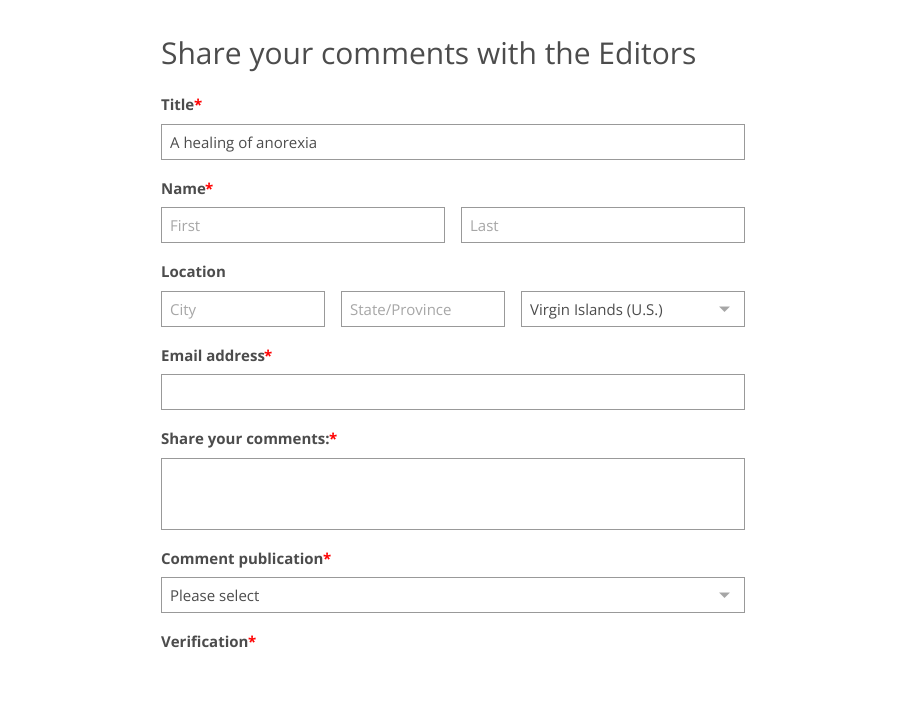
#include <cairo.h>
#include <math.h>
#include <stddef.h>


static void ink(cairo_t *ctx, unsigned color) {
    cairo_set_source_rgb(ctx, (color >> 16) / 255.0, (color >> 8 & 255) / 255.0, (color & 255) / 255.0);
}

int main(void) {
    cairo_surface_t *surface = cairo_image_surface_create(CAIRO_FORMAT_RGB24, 905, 711);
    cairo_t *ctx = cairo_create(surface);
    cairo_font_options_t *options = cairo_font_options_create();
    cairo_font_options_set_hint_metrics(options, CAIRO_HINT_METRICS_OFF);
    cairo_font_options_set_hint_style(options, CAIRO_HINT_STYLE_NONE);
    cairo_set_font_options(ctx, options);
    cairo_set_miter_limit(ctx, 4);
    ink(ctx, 0xFFFFFF);
    cairo_paint(ctx);
    cairo_select_font_face(ctx, "Open Sans", CAIRO_FONT_SLANT_NORMAL, CAIRO_FONT_WEIGHT_NORMAL);
    cairo_set_font_size(ctx, 30);
    ink(ctx, 0x4C4C4C);
    cairo_move_to(ctx, 161, 64);
    cairo_show_text(ctx, "Share your comments with the Editors");
    cairo_select_font_face(ctx, "Open Sans", CAIRO_FONT_SLANT_NORMAL, CAIRO_FONT_WEIGHT_BOLD);
    cairo_set_font_size(ctx, 15);
    cairo_move_to(ctx, 161, 110);
    cairo_show_text(ctx, "Title");
    ink(ctx, 0xFF0000);
    cairo_move_to(ctx, 194, 110);
    cairo_show_text(ctx, "*");
    cairo_rectangle(ctx, 161.5, 124.5, 583, 35);
    ink(ctx, 0x999999);
    cairo_set_line_width(ctx, 1);
    cairo_stroke(ctx);
    cairo_select_font_face(ctx, "Open Sans", CAIRO_FONT_SLANT_NORMAL, CAIRO_FONT_WEIGHT_NORMAL);
    ink(ctx, 0x4C4C4C);
    cairo_move_to(ctx, 170, 148);
    cairo_show_text(ctx, "A healing of anorexia");
    cairo_select_font_face(ctx, "Open Sans", CAIRO_FONT_SLANT_NORMAL, CAIRO_FONT_WEIGHT_BOLD);
    cairo_move_to(ctx, 161, 194);
    cairo_show_text(ctx, "Name");
    ink(ctx, 0xFF0000);
    cairo_move_to(ctx, 205, 194);
    cairo_show_text(ctx, "*");
    cairo_rectangle(ctx, 161.5, 207.5, 283, 35);
    ink(ctx, 0x999999);
    cairo_stroke(ctx);
    cairo_select_font_face(ctx, "Open Sans", CAIRO_FONT_SLANT_NORMAL, CAIRO_FONT_WEIGHT_NORMAL);
    ink(ctx, 0xA6A6A6);
    cairo_move_to(ctx, 170, 231);
    cairo_show_text(ctx, "First");
    cairo_rectangle(ctx, 461.5, 207.5, 283, 35);
    ink(ctx, 0x999999);
    cairo_stroke(ctx);
    ink(ctx, 0xA6A6A6);
    cairo_move_to(ctx, 470, 231);
    cairo_show_text(ctx, "Last");
    cairo_select_font_face(ctx, "Open Sans", CAIRO_FONT_SLANT_NORMAL, CAIRO_FONT_WEIGHT_BOLD);
    ink(ctx, 0x4C4C4C);
    cairo_move_to(ctx, 161, 277);
    cairo_show_text(ctx, "Location");
    cairo_rectangle(ctx, 161.5, 291.5, 163, 35);
    ink(ctx, 0x999999);
    cairo_stroke(ctx);
    cairo_select_font_face(ctx, "Open Sans", CAIRO_FONT_SLANT_NORMAL, CAIRO_FONT_WEIGHT_NORMAL);
    ink(ctx, 0xA6A6A6);
    cairo_move_to(ctx, 170, 315);
    cairo_show_text(ctx, "City");
    cairo_rectangle(ctx, 341.5, 291.5, 163, 35);
    ink(ctx, 0x999999);
    cairo_stroke(ctx);
    ink(ctx, 0xA6A6A6);
    cairo_move_to(ctx, 350, 315);
    cairo_show_text(ctx, "State/Province");
    cairo_rectangle(ctx, 521.5, 291.5, 223, 35);
    ink(ctx, 0x999999);
    cairo_stroke(ctx);
    ink(ctx, 0x4C4C4C);
    cairo_move_to(ctx, 530, 315);
    cairo_show_text(ctx, "Virgin Islands (U.S.)");
    ink(ctx, 0xA6A6A6);
    cairo_new_path(ctx);
    cairo_move_to(ctx, 719, 306.5);
    cairo_line_to(ctx, 724.5, 312);
    cairo_line_to(ctx, 730, 306.5);
    cairo_close_path(ctx);
    cairo_fill(ctx);
    cairo_select_font_face(ctx, "Open Sans", CAIRO_FONT_SLANT_NORMAL, CAIRO_FONT_WEIGHT_BOLD);
    ink(ctx, 0x4C4C4C);
    cairo_move_to(ctx, 161, 361);
    cairo_show_text(ctx, "Email address");
    ink(ctx, 0xFF0000);
    cairo_move_to(ctx, 264, 361);
    cairo_show_text(ctx, "*");
    cairo_rectangle(ctx, 161.5, 374.5, 583, 35);
    ink(ctx, 0x999999);
    cairo_stroke(ctx);
    ink(ctx, 0x4C4C4C);
    cairo_move_to(ctx, 161, 444);
    cairo_show_text(ctx, "Share your comments:");
    ink(ctx, 0xFF0000);
    cairo_move_to(ctx, 329, 444);
    cairo_show_text(ctx, "*");
    cairo_rectangle(ctx, 161.5, 458.5, 583, 71);
    ink(ctx, 0x999999);
    cairo_stroke(ctx);
    ink(ctx, 0x4C4C4C);
    cairo_move_to(ctx, 161, 564);
    cairo_show_text(ctx, "Comment publication");
    ink(ctx, 0xFF0000);
    cairo_move_to(ctx, 323, 564);
    cairo_show_text(ctx, "*");
    cairo_rectangle(ctx, 161.5, 577.5, 583, 35);
    ink(ctx, 0x999999);
    cairo_stroke(ctx);
    cairo_select_font_face(ctx, "Open Sans", CAIRO_FONT_SLANT_NORMAL, CAIRO_FONT_WEIGHT_NORMAL);
    ink(ctx, 0x4C4C4C);
    cairo_move_to(ctx, 170, 601);
    cairo_show_text(ctx, "Please select");
    ink(ctx, 0xA6A6A6);
    cairo_new_path(ctx);
    cairo_move_to(ctx, 719, 592.5);
    cairo_line_to(ctx, 724.5, 598);
    cairo_line_to(ctx, 730, 592.5);
    cairo_close_path(ctx);
    cairo_fill(ctx);
    cairo_select_font_face(ctx, "Open Sans", CAIRO_FONT_SLANT_NORMAL, CAIRO_FONT_WEIGHT_BOLD);
    ink(ctx, 0x4C4C4C);
    cairo_move_to(ctx, 161, 647);
    cairo_show_text(ctx, "Verification");
    ink(ctx, 0xFF0000);
    cairo_move_to(ctx, 248, 647);
    cairo_show_text(ctx, "*");
    cairo_surface_write_to_png(surface, "image.png");
    cairo_font_options_destroy(options);
    cairo_destroy(ctx);
    cairo_surface_destroy(surface);
    return 0;
}
